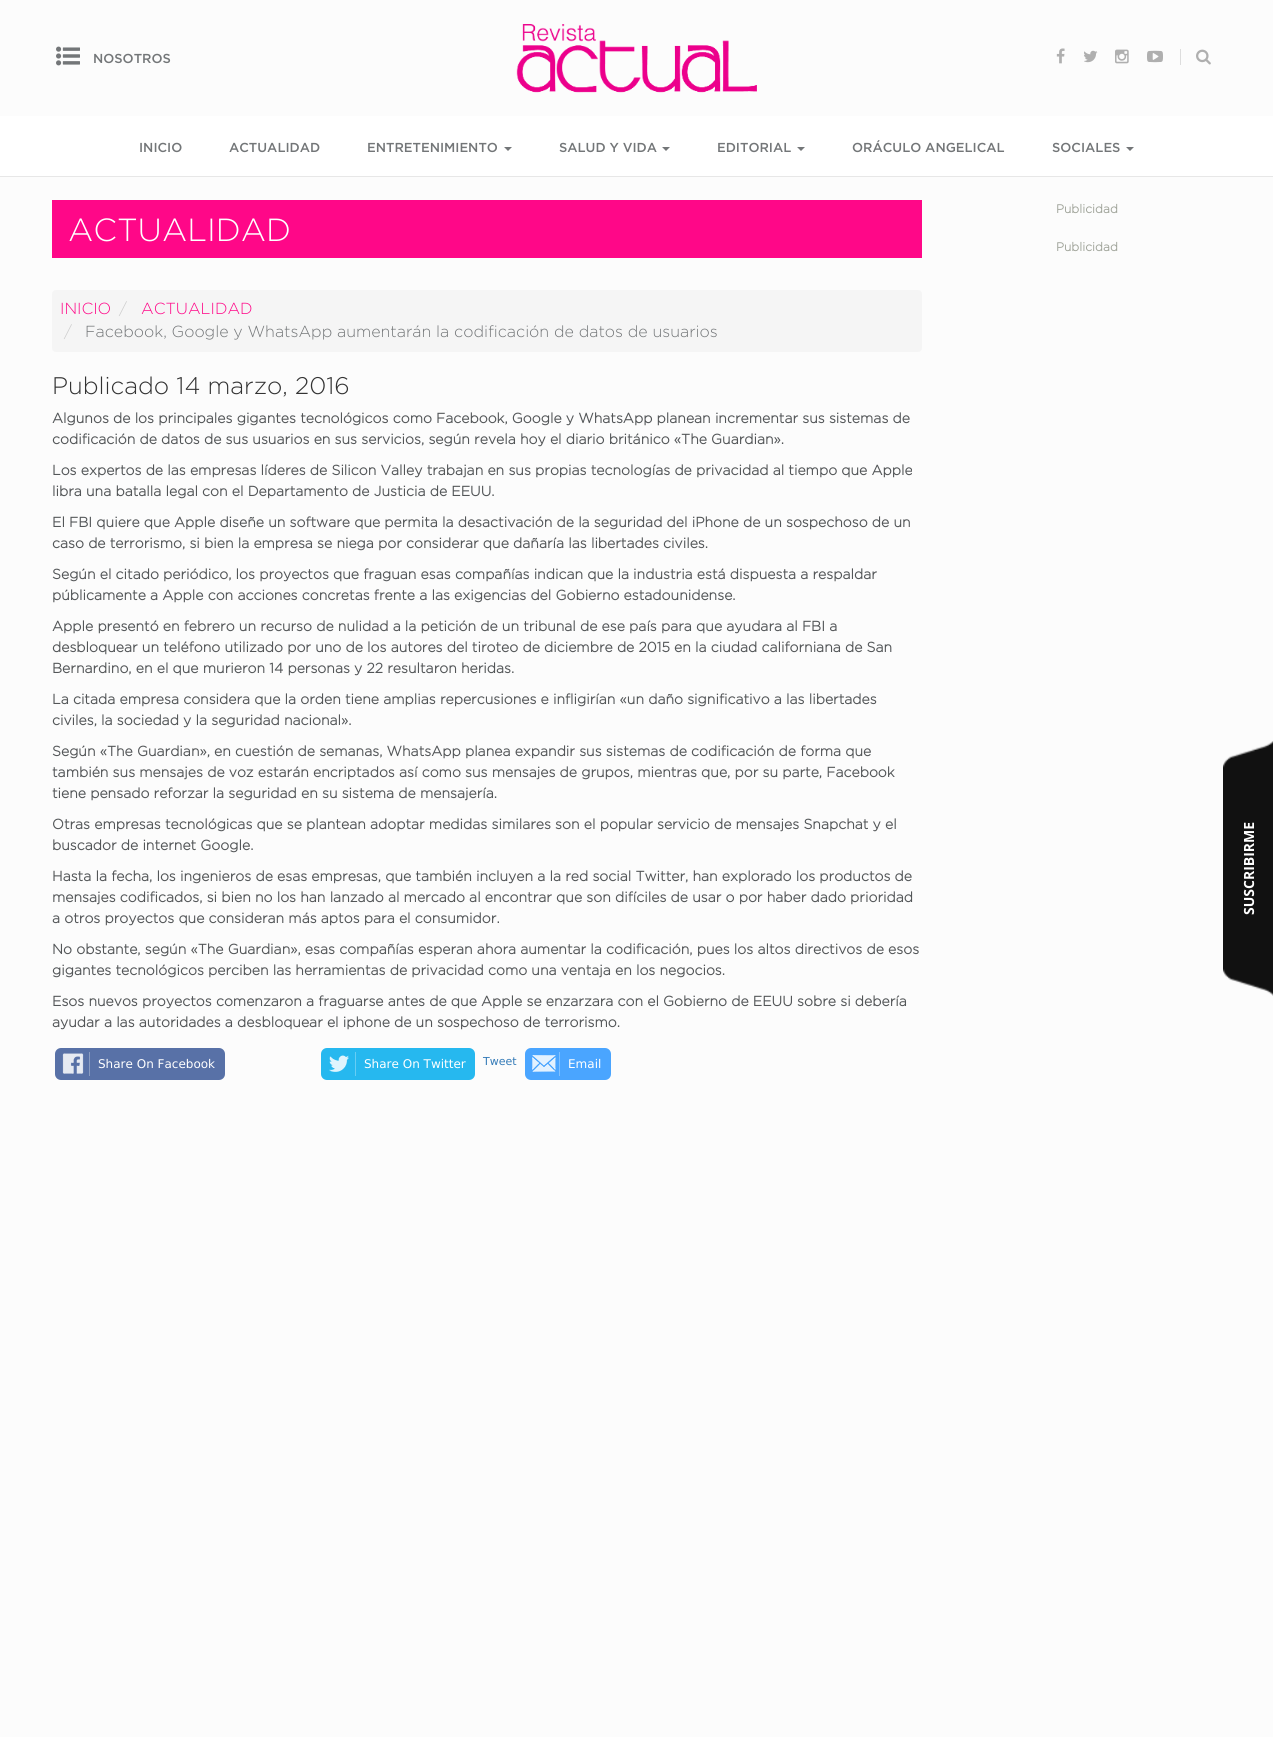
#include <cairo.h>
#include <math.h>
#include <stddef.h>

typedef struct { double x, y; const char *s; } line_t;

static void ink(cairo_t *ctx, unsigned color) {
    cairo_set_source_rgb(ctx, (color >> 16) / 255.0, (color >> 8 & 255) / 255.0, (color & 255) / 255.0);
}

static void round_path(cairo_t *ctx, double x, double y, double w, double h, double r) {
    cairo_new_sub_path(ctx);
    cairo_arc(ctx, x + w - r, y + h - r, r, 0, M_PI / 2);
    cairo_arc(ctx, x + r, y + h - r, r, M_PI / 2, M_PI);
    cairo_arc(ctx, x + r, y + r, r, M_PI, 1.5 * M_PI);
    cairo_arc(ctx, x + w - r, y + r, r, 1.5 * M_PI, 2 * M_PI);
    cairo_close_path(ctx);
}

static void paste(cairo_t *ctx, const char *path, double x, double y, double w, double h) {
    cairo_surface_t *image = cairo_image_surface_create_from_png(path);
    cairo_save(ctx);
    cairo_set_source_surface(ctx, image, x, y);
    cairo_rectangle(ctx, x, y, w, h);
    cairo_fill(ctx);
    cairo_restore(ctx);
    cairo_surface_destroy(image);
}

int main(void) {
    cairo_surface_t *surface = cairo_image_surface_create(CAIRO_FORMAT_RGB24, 1273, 1737);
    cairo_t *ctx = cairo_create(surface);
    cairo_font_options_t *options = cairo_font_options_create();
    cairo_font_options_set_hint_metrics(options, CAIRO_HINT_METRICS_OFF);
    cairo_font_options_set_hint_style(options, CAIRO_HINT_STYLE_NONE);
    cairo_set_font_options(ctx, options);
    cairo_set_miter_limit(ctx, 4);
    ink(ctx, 0xFCFCFC);
    cairo_paint(ctx);
    paste(ctx, "media/1.png", 56, 46, 24, 20);
    cairo_select_font_face(ctx, "Gotham Medium", CAIRO_FONT_SLANT_NORMAL, CAIRO_FONT_WEIGHT_NORMAL);
    cairo_set_font_size(ctx, 13);
    ink(ctx, 0x737678);
    cairo_move_to(ctx, 93, 63);
    cairo_show_text(ctx, "NOSOTROS");
    paste(ctx, "media/2.png", 516, 24, 241, 69);
    paste(ctx, "media/3.png", 1056, 48, 9, 16);
    paste(ctx, "media/4.png", 1084, 50, 14, 13);
    paste(ctx, "media/5.png", 1115, 49, 14, 15);
    paste(ctx, "media/6.png", 1147, 50, 16, 13);
    ink(ctx, 0xDDDDDD);
    cairo_rectangle(ctx, 1180, 49, 1, 16);
    cairo_fill(ctx);
    paste(ctx, "media/7.png", 1196, 49, 15, 16);
    ink(ctx, 0xFFFFFF);
    cairo_rectangle(ctx, 0, 116, 1273, 60);
    cairo_fill(ctx);
    ink(ctx, 0xE7E7E7);
    cairo_rectangle(ctx, 0, 176, 1273, 1);
    cairo_fill(ctx);
    ink(ctx, 0x737678);
    {
        static const line_t items[] = {
            {139, 152, "INICIO"},
            {229, 152, "ACTUALIDAD"},
            {367, 152, "ENTRETENIMIENTO"},
        };
        for (size_t i = 0; i < sizeof items / sizeof *items; i++) {
            cairo_move_to(ctx, items[i].x, items[i].y);
            cairo_show_text(ctx, items[i].s);
        }
    }
    cairo_new_path(ctx);
    cairo_move_to(ctx, 504, 147);
    cairo_line_to(ctx, 512, 147);
    cairo_line_to(ctx, 508, 151);
    cairo_close_path(ctx);
    cairo_fill(ctx);
    cairo_move_to(ctx, 559, 152);
    cairo_show_text(ctx, "SALUD Y VIDA");
    cairo_new_path(ctx);
    cairo_move_to(ctx, 662, 147);
    cairo_line_to(ctx, 670, 147);
    cairo_line_to(ctx, 666, 151);
    cairo_close_path(ctx);
    cairo_fill(ctx);
    cairo_move_to(ctx, 717, 152);
    cairo_show_text(ctx, "EDITORIAL");
    cairo_new_path(ctx);
    cairo_move_to(ctx, 797, 147);
    cairo_line_to(ctx, 805, 147);
    cairo_line_to(ctx, 801, 151);
    cairo_close_path(ctx);
    cairo_fill(ctx);
    cairo_move_to(ctx, 852, 152);
    cairo_show_text(ctx, "ORÁCULO ANGELICAL");
    cairo_move_to(ctx, 1052, 152);
    cairo_show_text(ctx, "SOCIALES");
    cairo_new_path(ctx);
    cairo_move_to(ctx, 1126, 147);
    cairo_line_to(ctx, 1134, 147);
    cairo_line_to(ctx, 1130, 151);
    cairo_close_path(ctx);
    cairo_fill(ctx);
    ink(ctx, 0xFF0788);
    cairo_rectangle(ctx, 52, 200, 870, 58);
    cairo_fill(ctx);
    cairo_select_font_face(ctx, "Gotham Light", CAIRO_FONT_SLANT_NORMAL, CAIRO_FONT_WEIGHT_NORMAL);
    cairo_set_font_size(ctx, 32);
    ink(ctx, 0xFFFFFF);
    cairo_move_to(ctx, 68, 241);
    cairo_show_text(ctx, "ACTUALIDAD");
    ink(ctx, 0xF5F5F5);
    round_path(ctx, 52, 290, 870, 62, 4);
    cairo_fill(ctx);
    cairo_set_font_size(ctx, 16);
    ink(ctx, 0xFF0788);
    cairo_move_to(ctx, 60, 314);
    cairo_show_text(ctx, "INICIO");
    ink(ctx, 0xCCCCCC);
    cairo_move_to(ctx, 119, 314);
    cairo_show_text(ctx, "/");
    ink(ctx, 0xFF0788);
    cairo_move_to(ctx, 141, 314);
    cairo_show_text(ctx, "ACTUALIDAD");
    ink(ctx, 0xCCCCCC);
    cairo_move_to(ctx, 64, 337);
    cairo_show_text(ctx, "/");
    ink(ctx, 0x737678);
    cairo_move_to(ctx, 85, 337);
    cairo_show_text(ctx, "Facebook, Google y WhatsApp aumentarán la codificación de datos de usuarios");
    cairo_set_font_size(ctx, 24);
    ink(ctx, 0x333333);
    cairo_move_to(ctx, 52, 394);
    cairo_show_text(ctx, "Publicado 14 marzo, 2016");
    cairo_select_font_face(ctx, "Gotham", CAIRO_FONT_SLANT_NORMAL, CAIRO_FONT_WEIGHT_BOLD);
    cairo_set_font_size(ctx, 14);
    ink(ctx, 0x535658);
    {
        static const line_t items[] = {
            {52, 423, "Algunos de los principales gigantes tecnológicos como Facebook, Google y WhatsApp planean incrementar sus sistemas de"},
            {52, 444, "codificación de datos de sus usuarios en sus servicios, según revela hoy el diario británico «The Guardian»."},
            {52, 475, "Los expertos de las empresas líderes de Silicon Valley trabajan en sus propias tecnologías de privacidad al tiempo que Apple"},
            {52, 496, "libra una batalla legal con el Departamento de Justicia de EEUU."},
            {52, 527, "El FBI quiere que Apple diseñe un software que permita la desactivación de la seguridad del iPhone de un sospechoso de un"},
            {52, 548, "caso de terrorismo, si bien la empresa se niega por considerar que dañaría las libertades civiles."},
            {52, 579, "Según el citado periódico, los proyectos que fraguan esas compañías indican que la industria está dispuesta a respaldar"},
            {52, 600, "públicamente a Apple con acciones concretas frente a las exigencias del Gobierno estadounidense."},
            {52, 631, "Apple presentó en febrero un recurso de nulidad a la petición de un tribunal de ese país para que ayudara al FBI a"},
            {52, 652, "desbloquear un teléfono utilizado por uno de los autores del tiroteo de diciembre de 2015 en la ciudad californiana de San"},
            {52, 673, "Bernardino, en el que murieron 14 personas y 22 resultaron heridas."},
            {52, 704, "La citada empresa considera que la orden tiene amplias repercusiones e infligirían «un daño significativo a las libertades"},
            {52, 725, "civiles, la sociedad y la seguridad nacional»."},
            {52, 756, "Según «The Guardian», en cuestión de semanas, WhatsApp planea expandir sus sistemas de codificación de forma que"},
            {52, 777, "también sus mensajes de voz estarán encriptados así como sus mensajes de grupos, mientras que, por su parte, Facebook"},
            {52, 798, "tiene pensado reforzar la seguridad en su sistema de mensajería."},
            {52, 829, "Otras empresas tecnológicas que se plantean adoptar medidas similares son el popular servicio de mensajes Snapchat y el"},
            {52, 850, "buscador de internet Google."},
            {52, 881, "Hasta la fecha, los ingenieros de esas empresas, que también incluyen a la red social Twitter, han explorado los productos de"},
            {52, 902, "mensajes codificados, si bien no los han lanzado al mercado al encontrar que son difíciles de usar o por haber dado prioridad"},
            {52, 923, "a otros proyectos que consideran más aptos para el consumidor."},
            {52, 954, "No obstante, según «The Guardian», esas compañías esperan ahora aumentar la codificación, pues los altos directivos de esos"},
            {52, 975, "gigantes tecnológicos perciben las herramientas de privacidad como una ventaja en los negocios."},
            {52, 1006, "Esos nuevos proyectos comenzaron a fraguarse antes de que Apple se enzarzara con el Gobierno de EEUU sobre si debería"},
            {52, 1027, "ayudar a las autoridades a desbloquear el iphone de un sospechoso de terrorismo."},
        };
        for (size_t i = 0; i < sizeof items / sizeof *items; i++) {
            cairo_move_to(ctx, items[i].x, items[i].y);
            cairo_show_text(ctx, items[i].s);
        }
    }
    ink(ctx, 0x5871A7);
    round_path(ctx, 55, 1048, 170, 32, 6);
    cairo_fill(ctx);
    paste(ctx, "media/8.png", 62, 1053, 22, 21);
    ink(ctx, 0x8A9CC1);
    cairo_rectangle(ctx, 89, 1052, 1, 24);
    cairo_fill(ctx);
    cairo_select_font_face(ctx, "DejaVu Sans", CAIRO_FONT_SLANT_NORMAL, CAIRO_FONT_WEIGHT_NORMAL);
    cairo_set_font_size(ctx, 12);
    ink(ctx, 0xFFFFFF);
    cairo_move_to(ctx, 98, 1068);
    cairo_show_text(ctx, "Share On Facebook");
    ink(ctx, 0x26B8EF);
    round_path(ctx, 321, 1048, 154, 32, 6);
    cairo_fill(ctx);
    paste(ctx, "media/9.png", 329, 1055, 20, 17);
    ink(ctx, 0x67CDF4);
    cairo_rectangle(ctx, 355, 1052, 1, 24);
    cairo_fill(ctx);
    ink(ctx, 0xFFFFFF);
    cairo_move_to(ctx, 364, 1068);
    cairo_show_text(ctx, "Share On Twitter");
    cairo_set_font_size(ctx, 11);
    ink(ctx, 0x337AB7);
    cairo_move_to(ctx, 483, 1065);
    cairo_show_text(ctx, "Tweet");
    ink(ctx, 0x4AA5FF);
    round_path(ctx, 525, 1048, 86, 32, 6);
    cairo_fill(ctx);
    paste(ctx, "media/10.png", 532, 1055, 24, 17);
    ink(ctx, 0x80C0FF);
    cairo_rectangle(ctx, 559, 1052, 1, 24);
    cairo_fill(ctx);
    cairo_set_font_size(ctx, 12);
    ink(ctx, 0xFFFFFF);
    cairo_move_to(ctx, 568, 1068);
    cairo_show_text(ctx, "Email");
    cairo_select_font_face(ctx, "Gotham", CAIRO_FONT_SLANT_NORMAL, CAIRO_FONT_WEIGHT_BOLD);
    ink(ctx, 0xA1A59B);
    cairo_move_to(ctx, 1056, 213);
    cairo_show_text(ctx, "Publicidad");
    cairo_move_to(ctx, 1056, 251);
    cairo_show_text(ctx, "Publicidad");
    ink(ctx, 0x111111);
    cairo_rectangle(ctx, 1223, 781, 50, 175);
    cairo_fill(ctx);
    paste(ctx, "media/11.png", 1223, 741, 50, 40);
    cairo_select_font_face(ctx, "Open Sans", CAIRO_FONT_SLANT_NORMAL, CAIRO_FONT_WEIGHT_BOLD);
    cairo_set_font_size(ctx, 14);
    ink(ctx, 0xFFFFFF);
    cairo_save(ctx);
    cairo_translate(ctx, 1254, 915);
    cairo_rotate(ctx, -90 * M_PI / 180);
    cairo_move_to(ctx, 0, 0);
    cairo_show_text(ctx, "SUSCRIBIRME");
    cairo_restore(ctx);
    paste(ctx, "media/12.png", 1223, 956, 50, 40);
    cairo_surface_write_to_png(surface, "image.png");
    cairo_font_options_destroy(options);
    cairo_destroy(ctx);
    cairo_surface_destroy(surface);
    return 0;
}
